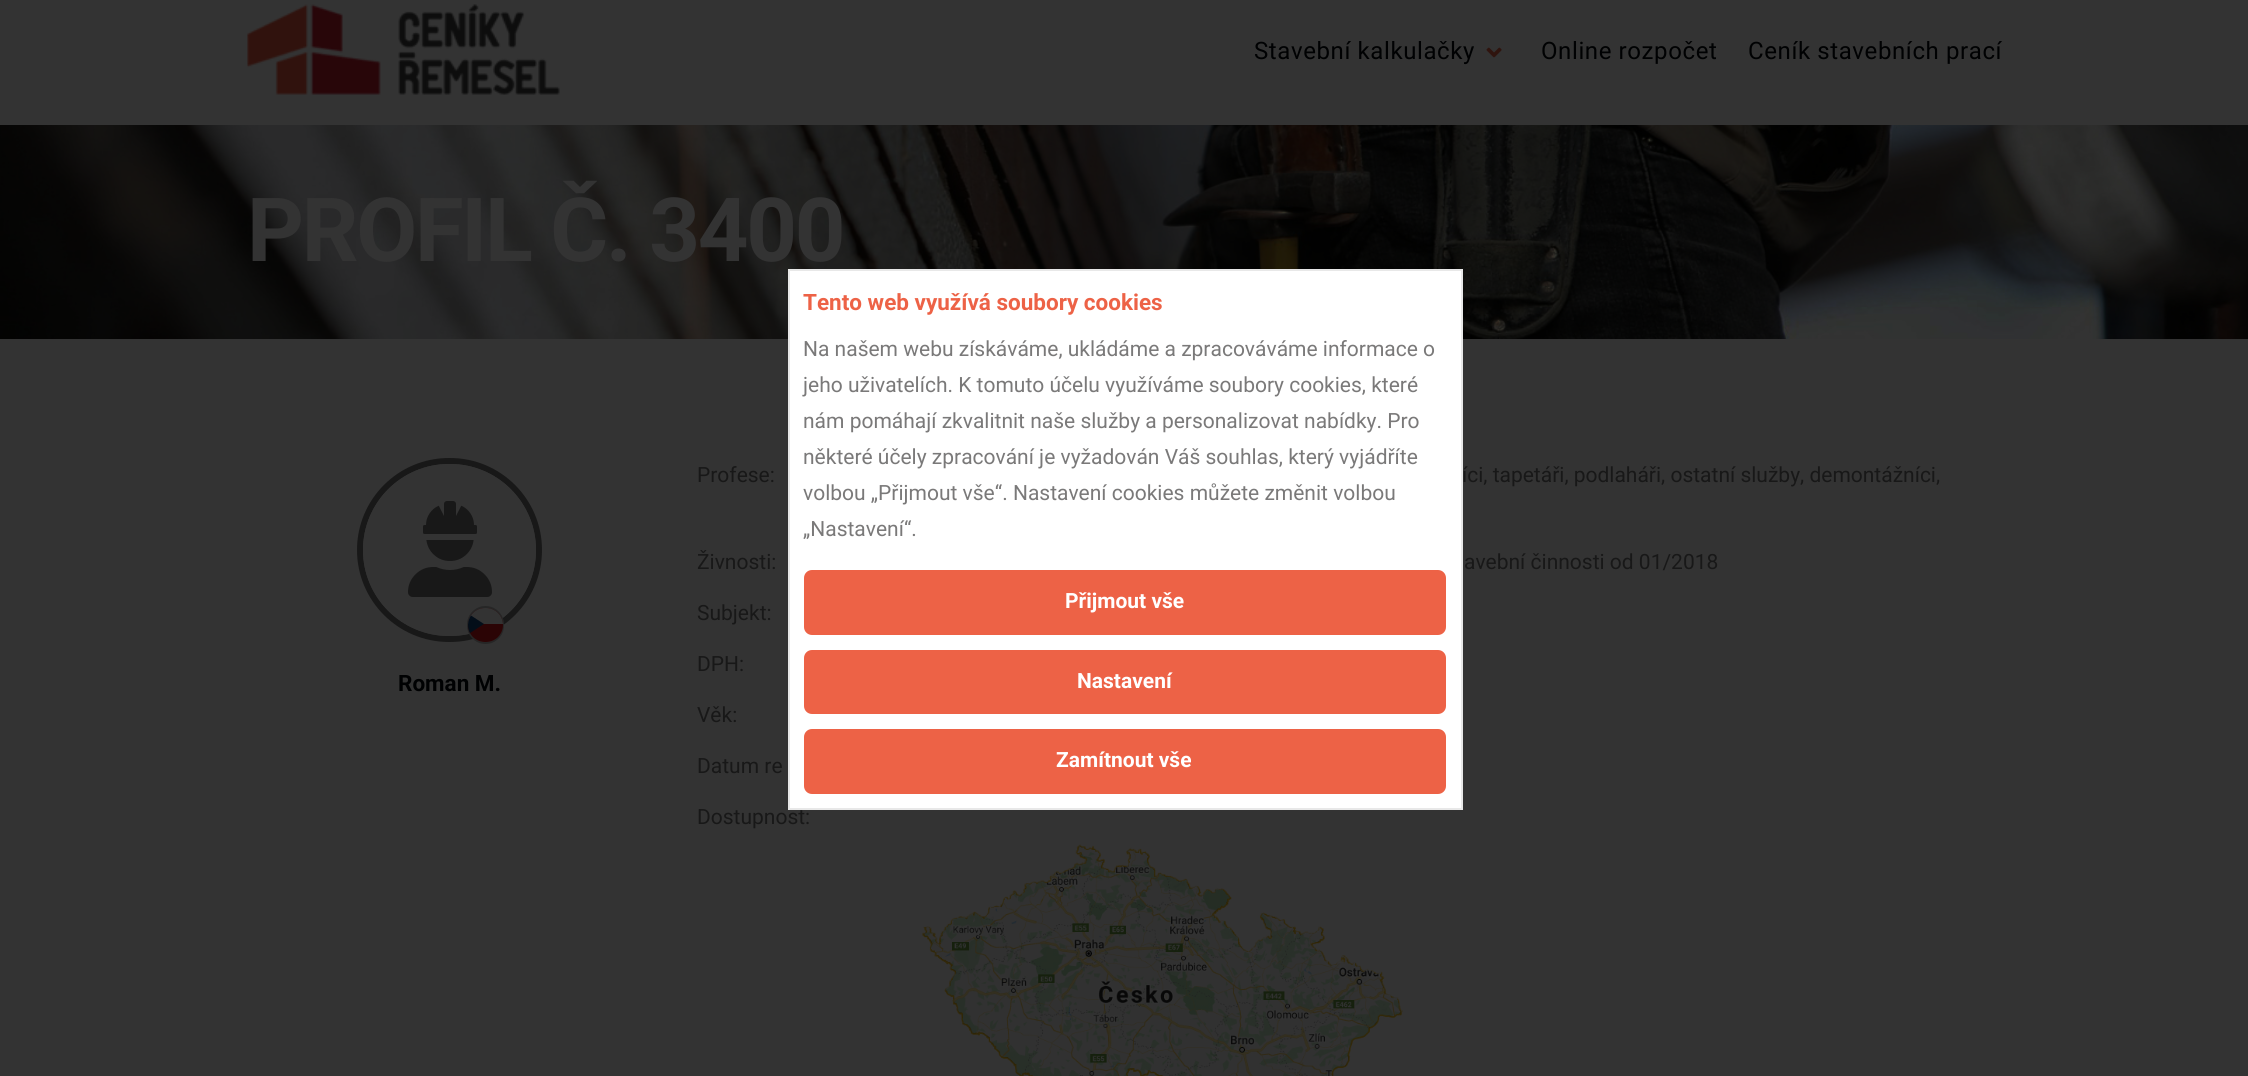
#include <cairo.h>
#include <math.h>
#include <stddef.h>

typedef struct { double x, y; const char *s; } line_t;

static void ink(cairo_t *ctx, unsigned color) {
    cairo_set_source_rgb(ctx, (color >> 16) / 255.0, (color >> 8 & 255) / 255.0, (color & 255) / 255.0);
}

static void write_spaced(cairo_t *ctx, double x, double y, const char *s, double letter, double word) {
    cairo_move_to(ctx, x, y);
    while (*s) {
        char ch[5] = {0};
        int n = 0;
        do ch[n++] = *s++; while ((*s & 0xC0) == 0x80);
        cairo_show_text(ctx, ch);
        cairo_rel_move_to(ctx, letter + word * (*ch == ' '), 0);
    }
}

static void round_path(cairo_t *ctx, double x, double y, double w, double h, double r) {
    cairo_new_sub_path(ctx);
    cairo_arc(ctx, x + w - r, y + h - r, r, 0, M_PI / 2);
    cairo_arc(ctx, x + r, y + h - r, r, M_PI / 2, M_PI);
    cairo_arc(ctx, x + r, y + r, r, M_PI, 1.5 * M_PI);
    cairo_arc(ctx, x + w - r, y + r, r, 1.5 * M_PI, 2 * M_PI);
    cairo_close_path(ctx);
}

static void paste(cairo_t *ctx, const char *path, double x, double y, double w, double h) {
    cairo_surface_t *image = cairo_image_surface_create_from_png(path);
    cairo_save(ctx);
    cairo_set_source_surface(ctx, image, x, y);
    cairo_rectangle(ctx, x, y, w, h);
    cairo_fill(ctx);
    cairo_restore(ctx);
    cairo_surface_destroy(image);
}

int main(void) {
    cairo_surface_t *surface = cairo_image_surface_create(CAIRO_FORMAT_RGB24, 2248, 1076);
    cairo_t *ctx = cairo_create(surface);
    cairo_font_options_t *options = cairo_font_options_create();
    cairo_font_options_set_hint_metrics(options, CAIRO_HINT_METRICS_OFF);
    cairo_font_options_set_hint_style(options, CAIRO_HINT_STYLE_NONE);
    cairo_set_font_options(ctx, options);
    cairo_set_miter_limit(ctx, 4);
    ink(ctx, 0x333333);
    cairo_paint(ctx);
    paste(ctx, "media/1.png", 247, 4, 313, 91);
    cairo_select_font_face(ctx, "Roboto", CAIRO_FONT_SLANT_NORMAL, CAIRO_FONT_WEIGHT_NORMAL);
    cairo_set_font_size(ctx, 24);
    ink(ctx, 0x000102);
    write_spaced(ctx, 1254, 59, "Stavební kalkulačky", 0.6, 0);
    paste(ctx, "media/2.png", 1486, 47, 16, 11);
    write_spaced(ctx, 1541, 59, "Online rozpočet", 0.6, 0);
    write_spaced(ctx, 1748, 59, "Ceník stavebních prací", 0.6, 0);
    paste(ctx, "media/3.png", 0, 125, 2248, 214);
    cairo_select_font_face(ctx, "Roboto", CAIRO_FONT_SLANT_NORMAL, CAIRO_FONT_WEIGHT_BOLD);
    cairo_set_font_size(ctx, 88.5);
    ink(ctx, 0x333333);
    write_spaced(ctx, 247, 261, "PROFIL Č. 3400", -2.25, 0);
    round_path(ctx, 360, 461, 179, 178, 89);
    ink(ctx, 0x181818);
    cairo_set_line_width(ctx, 6);
    cairo_stroke(ctx);
    ink(ctx, 0x333333);
    round_path(ctx, 363, 464, 173, 172, 86);
    cairo_fill(ctx);
    paste(ctx, "media/4.png", 408, 501, 84, 96);
    round_path(ctx, 468, 607, 35, 36, 17.5);
    ink(ctx, 0x262626);
    cairo_set_line_width(ctx, 2);
    cairo_stroke(ctx);
    ink(ctx, 0x2B0405);
    round_path(ctx, 468, 608, 35, 34, 17);
    cairo_fill(ctx);
    cairo_save(ctx);
    round_path(ctx, 468, 608, 35, 34, 17);
    cairo_clip(ctx);
    ink(ctx, 0x333333);
    cairo_rectangle(ctx, 468, 608, 35, 16);
    cairo_fill(ctx);
    cairo_restore(ctx);
    ink(ctx, 0x030E19);
    cairo_new_path(ctx);
    cairo_move_to(ctx, 484, 624);
    cairo_line_to(ctx, 470, 633);
    cairo_curve_to(ctx, 467, 627.5, 467.5, 620.5, 471, 615.5);
    cairo_close_path(ctx);
    cairo_fill(ctx);
    cairo_set_font_size(ctx, 22.5);
    ink(ctx, 0x000102);
    cairo_move_to(ctx, 398, 691);
    cairo_show_text(ctx, "Roman M.");
    cairo_select_font_face(ctx, "Roboto", CAIRO_FONT_SLANT_NORMAL, CAIRO_FONT_WEIGHT_NORMAL);
    cairo_set_font_size(ctx, 21);
    ink(ctx, 0x181818);
    {
        static const line_t items[] = {
            {697, 482, "Profese:"},
            {1462, 482, "íci, tapetáři, podlaháři, ostatní služby, demontážníci,"},
            {697, 569, "Živnosti:"},
            {1464, 569, "avební činnosti od 01/2018"},
            {697, 620, "Subjekt:"},
            {697, 671, "DPH:"},
            {697, 722, "Věk:"},
            {697, 773, "Datum re"},
            {697, 824, "Dostupnost:"},
        };
        for (size_t i = 0; i < sizeof items / sizeof *items; i++) {
            cairo_move_to(ctx, items[i].x, items[i].y);
            cairo_show_text(ctx, items[i].s);
        }
    }
    paste(ctx, "media/5.png", 922, 844, 481, 232);
    paste(ctx, "media/6.png", 922, 844, 481, 232);
    ink(ctx, 0xFFFFFF);
    cairo_rectangle(ctx, 789, 270, 673, 539);
    cairo_fill_preserve(ctx);
    ink(ctx, 0xE8E8E8);
    cairo_stroke(ctx);
    cairo_select_font_face(ctx, "Roboto", CAIRO_FONT_SLANT_NORMAL, CAIRO_FONT_WEIGHT_BOLD);
    cairo_set_font_size(ctx, 22.5);
    ink(ctx, 0xED6246);
    cairo_move_to(ctx, 803, 310);
    cairo_show_text(ctx, "Tento web využívá soubory cookies");
    cairo_select_font_face(ctx, "Roboto", CAIRO_FONT_SLANT_NORMAL, CAIRO_FONT_WEIGHT_NORMAL);
    cairo_set_font_size(ctx, 21);
    ink(ctx, 0x7A7979);
    {
        static const line_t items[] = {
            {803, 356, "Na našem webu získáváme, ukládáme a zpracováváme informace o"},
            {803, 392, "jeho uživatelích. K tomuto účelu využíváme soubory cookies, které"},
            {803, 428, "nám pomáhají zkvalitnit naše služby a personalizovat nabídky. Pro"},
            {803, 464, "některé účely zpracování je vyžadován Váš souhlas, který vyjádříte"},
            {803, 500, "volbou „Přijmout vše“. Nastavení cookies můžete změnit volbou"},
            {803, 536, "„Nastavení“."},
        };
        for (size_t i = 0; i < sizeof items / sizeof *items; i++) {
            cairo_move_to(ctx, items[i].x, items[i].y);
            cairo_show_text(ctx, items[i].s);
        }
    }
    ink(ctx, 0xED6246);
    round_path(ctx, 805, 571, 640, 63, 7);
    cairo_fill_preserve(ctx);
    cairo_stroke(ctx);
    cairo_select_font_face(ctx, "Roboto", CAIRO_FONT_SLANT_NORMAL, CAIRO_FONT_WEIGHT_BOLD);
    ink(ctx, 0xFFFFFF);
    cairo_move_to(ctx, 1065, 608);
    cairo_show_text(ctx, "Přijmout vše");
    ink(ctx, 0xED6246);
    round_path(ctx, 805, 651, 640, 62, 7);
    cairo_fill_preserve(ctx);
    cairo_stroke(ctx);
    ink(ctx, 0xFFFFFF);
    cairo_move_to(ctx, 1077, 688);
    cairo_show_text(ctx, "Nastavení");
    ink(ctx, 0xED6246);
    round_path(ctx, 805, 730, 640, 63, 7);
    cairo_fill_preserve(ctx);
    cairo_stroke(ctx);
    ink(ctx, 0xFFFFFF);
    cairo_move_to(ctx, 1056, 767);
    cairo_show_text(ctx, "Zamítnout vše");
    cairo_surface_write_to_png(surface, "image.png");
    cairo_font_options_destroy(options);
    cairo_destroy(ctx);
    cairo_surface_destroy(surface);
    return 0;
}
